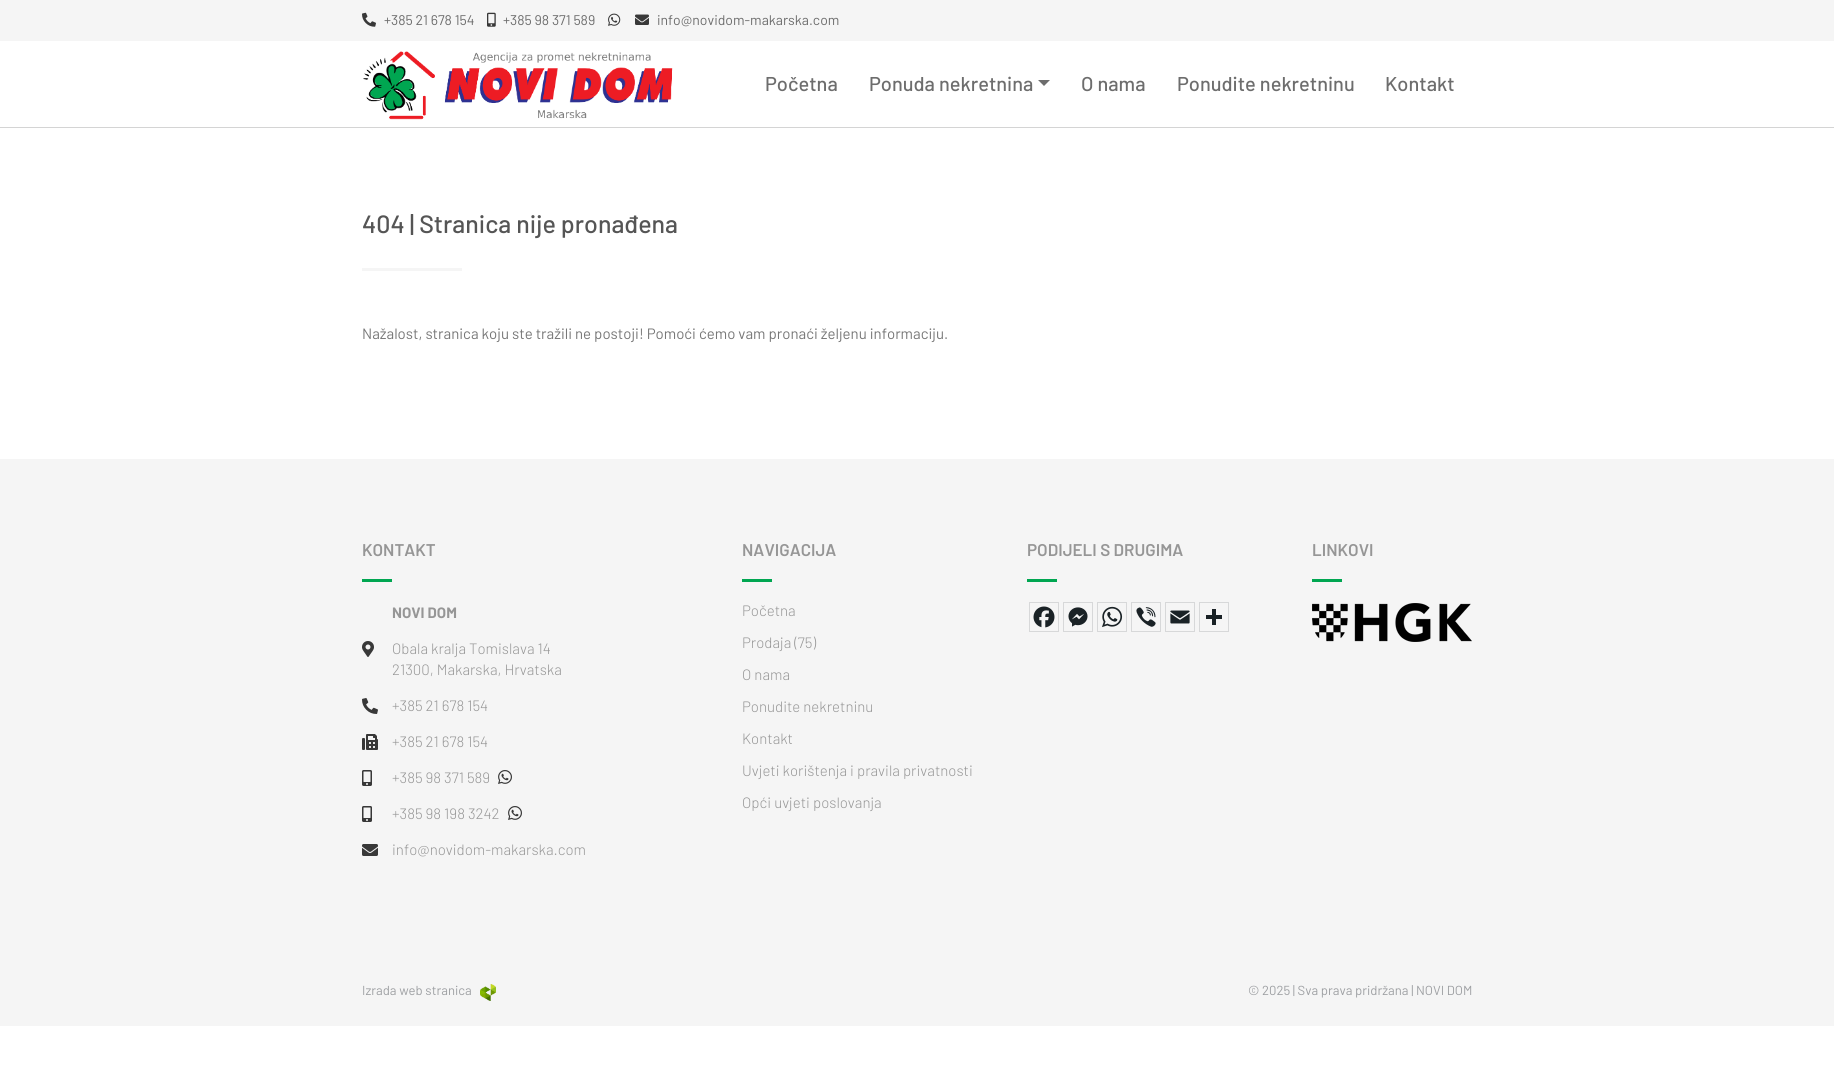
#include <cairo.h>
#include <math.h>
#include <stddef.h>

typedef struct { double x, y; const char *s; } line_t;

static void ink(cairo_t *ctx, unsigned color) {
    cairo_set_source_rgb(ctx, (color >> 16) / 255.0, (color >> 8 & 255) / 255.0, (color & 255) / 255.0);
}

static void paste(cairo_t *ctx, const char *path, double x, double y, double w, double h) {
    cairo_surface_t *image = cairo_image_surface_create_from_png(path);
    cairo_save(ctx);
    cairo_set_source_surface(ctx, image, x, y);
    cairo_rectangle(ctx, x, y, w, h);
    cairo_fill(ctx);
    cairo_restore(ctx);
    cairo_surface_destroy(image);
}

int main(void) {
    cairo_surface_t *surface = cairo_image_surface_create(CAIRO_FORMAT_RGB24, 1834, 1065);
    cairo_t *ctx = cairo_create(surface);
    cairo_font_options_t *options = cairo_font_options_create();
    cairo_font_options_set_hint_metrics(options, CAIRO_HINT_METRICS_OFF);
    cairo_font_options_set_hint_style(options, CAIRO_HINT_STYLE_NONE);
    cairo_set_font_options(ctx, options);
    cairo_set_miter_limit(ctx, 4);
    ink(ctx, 0xFFFFFF);
    cairo_paint(ctx);
    ink(ctx, 0xF5F5F5);
    cairo_rectangle(ctx, 0, 0, 1834, 41);
    cairo_fill(ctx);
    paste(ctx, "media/1.png", 362, 12, 14, 15);
    cairo_select_font_face(ctx, "Barlow", CAIRO_FONT_SLANT_NORMAL, CAIRO_FONT_WEIGHT_NORMAL);
    cairo_set_font_size(ctx, 14);
    ink(ctx, 0x6D6D6D);
    cairo_move_to(ctx, 384, 25);
    cairo_show_text(ctx, "+385 21 678 154");
    paste(ctx, "media/2.png", 487, 12, 9, 15);
    cairo_move_to(ctx, 503, 25);
    cairo_show_text(ctx, "+385 98 371 589");
    paste(ctx, "media/3.png", 608, 13, 13, 13);
    paste(ctx, "media/4.png", 635, 14, 14, 11);
    cairo_move_to(ctx, 657, 25);
    cairo_show_text(ctx, "info@novidom-makarska.com");
    ink(ctx, 0xD4D4D4);
    cairo_rectangle(ctx, 0, 127, 1834, 1);
    cairo_fill(ctx);
    paste(ctx, "media/5.png", 363, 51, 310, 69);
    cairo_select_font_face(ctx, "Barlow Medium", CAIRO_FONT_SLANT_NORMAL, CAIRO_FONT_WEIGHT_NORMAL);
    cairo_set_font_size(ctx, 20);
    ink(ctx, 0x6D6D6D);
    cairo_move_to(ctx, 765, 91);
    cairo_show_text(ctx, "Početna");
    cairo_move_to(ctx, 869, 91);
    cairo_show_text(ctx, "Ponuda nekretnina");
    cairo_new_path(ctx);
    cairo_move_to(ctx, 1038, 80);
    cairo_line_to(ctx, 1050, 80);
    cairo_line_to(ctx, 1044, 86);
    cairo_close_path(ctx);
    cairo_fill(ctx);
    {
        static const line_t items[] = {
            {1081, 91, "O nama"},
            {1177, 91, "Ponudite nekretninu"},
            {1385, 91, "Kontakt"},
        };
        for (size_t i = 0; i < sizeof items / sizeof *items; i++) {
            cairo_move_to(ctx, items[i].x, items[i].y);
            cairo_show_text(ctx, items[i].s);
        }
    }
    cairo_set_font_size(ctx, 25);
    ink(ctx, 0x555555);
    cairo_move_to(ctx, 362, 233);
    cairo_show_text(ctx, "404 | Stranica nije pronađena");
    ink(ctx, 0xF5F5F5);
    cairo_rectangle(ctx, 362, 268, 100, 3);
    cairo_fill(ctx);
    cairo_select_font_face(ctx, "Barlow", CAIRO_FONT_SLANT_NORMAL, CAIRO_FONT_WEIGHT_NORMAL);
    cairo_set_font_size(ctx, 15);
    ink(ctx, 0x777777);
    cairo_move_to(ctx, 362, 339);
    cairo_show_text(ctx, "Nažalost, stranica koju ste tražili ne postoji! Pomoći ćemo vam pronaći željenu informaciju.");
    ink(ctx, 0xF5F5F5);
    cairo_rectangle(ctx, 0, 459, 1834, 567);
    cairo_fill(ctx);
    cairo_select_font_face(ctx, "Barlow SemiBold", CAIRO_FONT_SLANT_NORMAL, CAIRO_FONT_WEIGHT_NORMAL);
    cairo_set_font_size(ctx, 17);
    ink(ctx, 0x969696);
    cairo_move_to(ctx, 362, 556);
    cairo_show_text(ctx, "KONTAKT");
    ink(ctx, 0x00A651);
    cairo_rectangle(ctx, 362, 579, 30, 3);
    cairo_fill(ctx);
    cairo_select_font_face(ctx, "Barlow", CAIRO_FONT_SLANT_NORMAL, CAIRO_FONT_WEIGHT_BOLD);
    cairo_set_font_size(ctx, 15);
    ink(ctx, 0x969696);
    cairo_move_to(ctx, 392, 618);
    cairo_show_text(ctx, "NOVI DOM");
    paste(ctx, "media/6.png", 362, 641, 12, 16);
    cairo_select_font_face(ctx, "Barlow Light", CAIRO_FONT_SLANT_NORMAL, CAIRO_FONT_WEIGHT_NORMAL);
    cairo_move_to(ctx, 392, 654);
    cairo_show_text(ctx, "Obala kralja Tomislava 14");
    cairo_move_to(ctx, 392, 675);
    cairo_show_text(ctx, "21300, Makarska, Hrvatska");
    paste(ctx, "media/7.png", 362, 698, 16, 16);
    cairo_move_to(ctx, 392, 711);
    cairo_show_text(ctx, "+385 21 678 154");
    paste(ctx, "media/8.png", 362, 734, 16, 16);
    cairo_move_to(ctx, 392, 747);
    cairo_show_text(ctx, "+385 21 678 154");
    paste(ctx, "media/9.png", 362, 770, 10, 16);
    cairo_move_to(ctx, 392, 783);
    cairo_show_text(ctx, "+385 98 371 589");
    paste(ctx, "media/10.png", 498, 770, 14, 14);
    paste(ctx, "media/9.png", 362, 806, 10, 16);
    cairo_move_to(ctx, 392, 819);
    cairo_show_text(ctx, "+385 98 198 3242");
    paste(ctx, "media/10.png", 508, 806, 14, 14);
    paste(ctx, "media/11.png", 362, 844, 16, 12);
    cairo_move_to(ctx, 392, 855);
    cairo_show_text(ctx, "info@novidom-makarska.com");
    cairo_select_font_face(ctx, "Barlow SemiBold", CAIRO_FONT_SLANT_NORMAL, CAIRO_FONT_WEIGHT_NORMAL);
    cairo_set_font_size(ctx, 17);
    cairo_move_to(ctx, 742, 556);
    cairo_show_text(ctx, "NAVIGACIJA");
    ink(ctx, 0x00A651);
    cairo_rectangle(ctx, 742, 579, 30, 3);
    cairo_fill(ctx);
    cairo_select_font_face(ctx, "Barlow Light", CAIRO_FONT_SLANT_NORMAL, CAIRO_FONT_WEIGHT_NORMAL);
    cairo_set_font_size(ctx, 15);
    ink(ctx, 0x969696);
    {
        static const line_t items[] = {
            {742, 616, "Početna"},
            {742, 648, "Prodaja (75)"},
            {742, 680, "O nama"},
            {742, 712, "Ponudite nekretninu"},
            {742, 744, "Kontakt"},
            {742, 776, "Uvjeti korištenja i pravila privatnosti"},
            {742, 808, "Opći uvjeti poslovanja"},
        };
        for (size_t i = 0; i < sizeof items / sizeof *items; i++) {
            cairo_move_to(ctx, items[i].x, items[i].y);
            cairo_show_text(ctx, items[i].s);
        }
    }
    cairo_select_font_face(ctx, "Barlow SemiBold", CAIRO_FONT_SLANT_NORMAL, CAIRO_FONT_WEIGHT_NORMAL);
    cairo_set_font_size(ctx, 17);
    cairo_move_to(ctx, 1027, 556);
    cairo_show_text(ctx, "PODIJELI S DRUGIMA");
    ink(ctx, 0x00A651);
    cairo_rectangle(ctx, 1027, 579, 30, 3);
    cairo_fill(ctx);
    cairo_rectangle(ctx, 1029.5, 602.5, 29, 29);
    ink(ctx, 0xD7D8D9);
    cairo_set_line_width(ctx, 1);
    cairo_stroke(ctx);
    paste(ctx, "media/12.png", 1033, 606, 22, 22);
    cairo_rectangle(ctx, 1063.5, 602.5, 29, 29);
    cairo_stroke(ctx);
    paste(ctx, "media/13.png", 1068, 607, 20, 20);
    cairo_rectangle(ctx, 1097.5, 602.5, 29, 29);
    cairo_stroke(ctx);
    paste(ctx, "media/14.png", 1102, 606, 21, 22);
    cairo_rectangle(ctx, 1131.5, 602.5, 29, 29);
    cairo_stroke(ctx);
    paste(ctx, "media/15.png", 1136, 607, 20, 20);
    cairo_rectangle(ctx, 1165.5, 602.5, 29, 29);
    cairo_stroke(ctx);
    paste(ctx, "media/16.png", 1170, 610, 20, 14);
    cairo_rectangle(ctx, 1199.5, 602.5, 29, 29);
    cairo_stroke(ctx);
    ink(ctx, 0x1A2226);
    cairo_rectangle(ctx, 1212, 609, 4, 16);
    cairo_fill(ctx);
    cairo_rectangle(ctx, 1206, 615, 16, 4);
    cairo_fill(ctx);
    ink(ctx, 0x969696);
    cairo_move_to(ctx, 1312, 556);
    cairo_show_text(ctx, "LINKOVI");
    ink(ctx, 0x00A651);
    cairo_rectangle(ctx, 1312, 579, 30, 3);
    cairo_fill(ctx);
    paste(ctx, "media/17.png", 1312, 603, 160, 39);
    cairo_select_font_face(ctx, "Barlow", CAIRO_FONT_SLANT_NORMAL, CAIRO_FONT_WEIGHT_NORMAL);
    cairo_set_font_size(ctx, 13.1);
    ink(ctx, 0x9EA0A3);
    cairo_move_to(ctx, 362, 995);
    cairo_show_text(ctx, "Izrada web stranica");
    paste(ctx, "media/18.png", 480, 984, 16, 17);
    cairo_move_to(ctx, 1248, 995);
    cairo_show_text(ctx, "© 2025 | Sva prava pridržana | NOVI DOM");
    cairo_surface_write_to_png(surface, "image.png");
    cairo_font_options_destroy(options);
    cairo_destroy(ctx);
    cairo_surface_destroy(surface);
    return 0;
}
